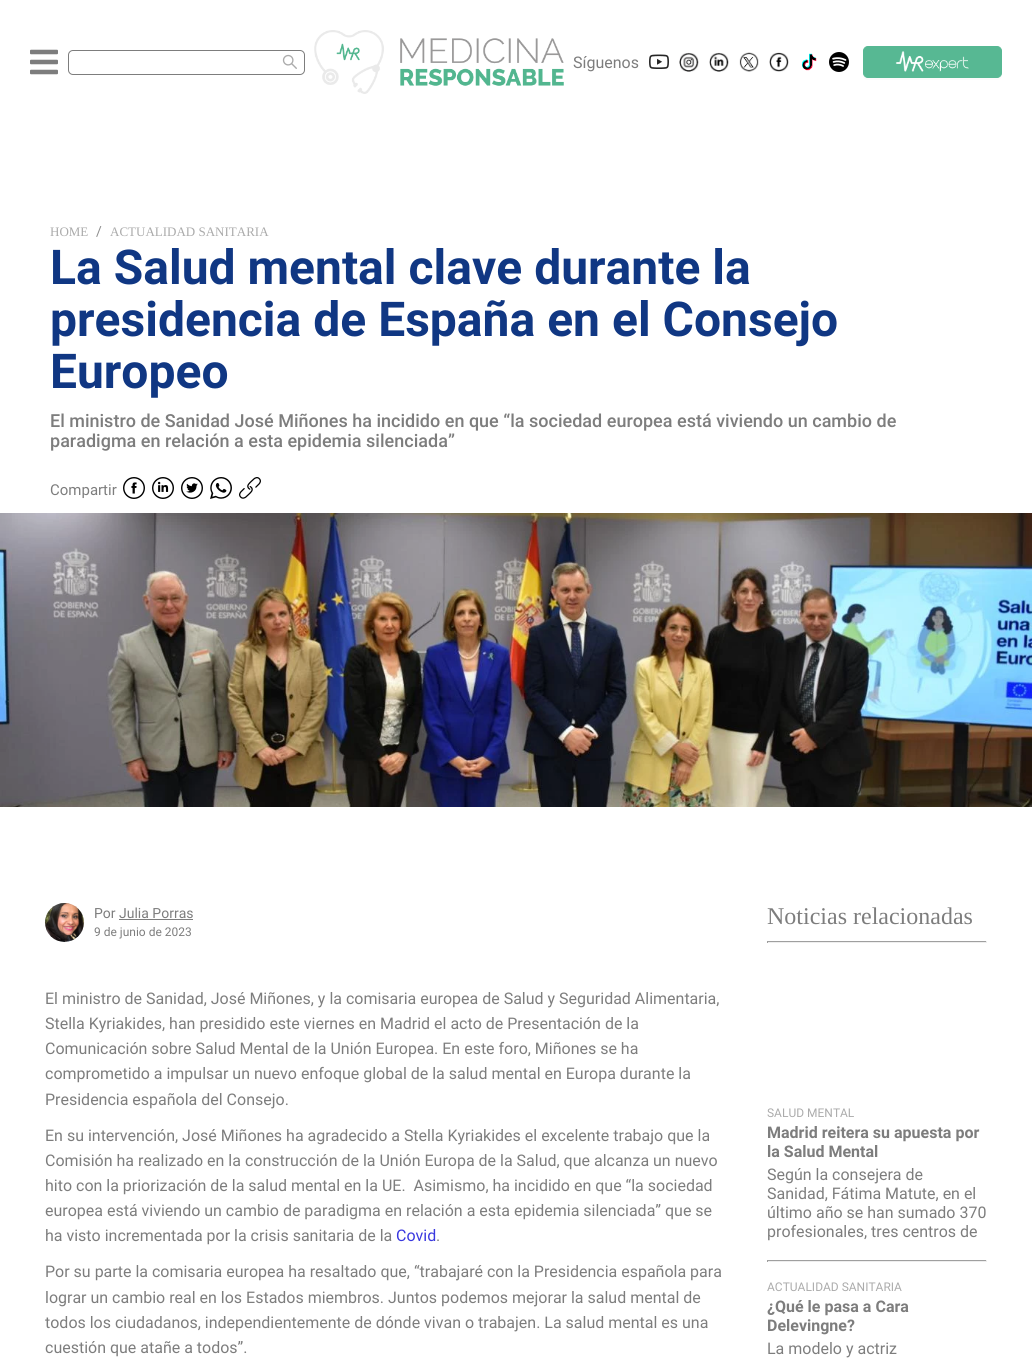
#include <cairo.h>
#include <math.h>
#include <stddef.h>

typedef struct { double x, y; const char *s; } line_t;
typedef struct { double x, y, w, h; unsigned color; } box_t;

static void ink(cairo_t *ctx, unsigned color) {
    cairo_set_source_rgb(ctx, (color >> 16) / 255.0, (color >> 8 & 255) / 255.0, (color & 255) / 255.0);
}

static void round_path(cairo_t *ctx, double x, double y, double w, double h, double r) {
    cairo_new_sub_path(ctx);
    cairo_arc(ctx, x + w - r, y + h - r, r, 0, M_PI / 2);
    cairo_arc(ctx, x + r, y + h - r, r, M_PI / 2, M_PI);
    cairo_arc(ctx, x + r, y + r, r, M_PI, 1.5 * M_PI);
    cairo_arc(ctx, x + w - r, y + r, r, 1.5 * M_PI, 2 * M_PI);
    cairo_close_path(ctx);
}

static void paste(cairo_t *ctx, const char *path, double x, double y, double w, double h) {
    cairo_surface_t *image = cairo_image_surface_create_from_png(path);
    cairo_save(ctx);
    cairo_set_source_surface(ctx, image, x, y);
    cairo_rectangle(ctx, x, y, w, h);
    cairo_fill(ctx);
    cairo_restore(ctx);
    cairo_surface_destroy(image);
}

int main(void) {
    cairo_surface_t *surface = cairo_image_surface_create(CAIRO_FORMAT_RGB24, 1032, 1367);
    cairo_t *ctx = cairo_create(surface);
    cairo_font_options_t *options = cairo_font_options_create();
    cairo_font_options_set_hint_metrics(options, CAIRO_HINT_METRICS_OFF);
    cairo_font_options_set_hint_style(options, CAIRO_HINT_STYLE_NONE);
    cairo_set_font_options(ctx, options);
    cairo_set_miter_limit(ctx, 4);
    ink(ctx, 0xFFFFFF);
    cairo_paint(ctx);
    paste(ctx, "media/1.png", 30, 49, 28, 26);
    round_path(ctx, 68.5, 50.5, 236, 24, 4.5);
    ink(ctx, 0x7D7D7D);
    cairo_set_line_width(ctx, 1);
    cairo_stroke(ctx);
    paste(ctx, "media/2.png", 282, 54, 15, 15);
    paste(ctx, "media/3.png", 314, 30, 250, 64);
    cairo_select_font_face(ctx, "Roboto", CAIRO_FONT_SLANT_NORMAL, CAIRO_FONT_WEIGHT_NORMAL);
    cairo_set_font_size(ctx, 16);
    cairo_move_to(ctx, 573, 68);
    cairo_show_text(ctx, "Síguenos");
    paste(ctx, "media/4.png", 649, 54, 20, 15);
    paste(ctx, "media/5.png", 679, 52, 20, 20);
    paste(ctx, "media/6.png", 709, 52, 20, 20);
    paste(ctx, "media/7.png", 739, 52, 20, 20);
    paste(ctx, "media/8.png", 769, 52, 20, 20);
    paste(ctx, "media/9.png", 801, 53, 16, 18);
    paste(ctx, "media/10.png", 829, 52, 20, 20);
    ink(ctx, 0xFBFBFB);
    cairo_new_path(ctx);
    cairo_move_to(ctx, 863, 73);
    cairo_line_to(ctx, 863, 75);
    cairo_curve_to(ctx, 863, 78, 865, 80, 868, 80);
    cairo_line_to(ctx, 997, 80);
    cairo_curve_to(ctx, 1000, 80, 1002, 78, 1002, 75);
    cairo_line_to(ctx, 1002, 73);
    cairo_curve_to(ctx, 1002, 76, 1000, 78, 997, 78);
    cairo_line_to(ctx, 868, 78);
    cairo_curve_to(ctx, 865, 78, 863, 76, 863, 73);
    cairo_close_path(ctx);
    cairo_fill(ctx);
    ink(ctx, 0x57B893);
    round_path(ctx, 863.5, 46.5, 138, 31, 4.5);
    cairo_fill_preserve(ctx);
    cairo_stroke(ctx);
    paste(ctx, "media/11.png", 895, 51, 74, 21);
    cairo_select_font_face(ctx, "Liberation Serif", CAIRO_FONT_SLANT_NORMAL, CAIRO_FONT_WEIGHT_NORMAL);
    cairo_set_font_size(ctx, 13);
    ink(ctx, 0xABABAB);
    cairo_move_to(ctx, 50, 236);
    cairo_show_text(ctx, "HOME");
    cairo_select_font_face(ctx, "Roboto", CAIRO_FONT_SLANT_NORMAL, CAIRO_FONT_WEIGHT_NORMAL);
    cairo_set_font_size(ctx, 14);
    ink(ctx, 0x8C8C8C);
    cairo_move_to(ctx, 96, 236);
    cairo_show_text(ctx, "/");
    cairo_select_font_face(ctx, "Liberation Serif", CAIRO_FONT_SLANT_NORMAL, CAIRO_FONT_WEIGHT_NORMAL);
    cairo_set_font_size(ctx, 13);
    ink(ctx, 0xABABAB);
    cairo_move_to(ctx, 110, 236);
    cairo_show_text(ctx, "ACTUALIDAD SANITARIA");
    cairo_select_font_face(ctx, "Roboto", CAIRO_FONT_SLANT_NORMAL, CAIRO_FONT_WEIGHT_BOLD);
    cairo_set_font_size(ctx, 48);
    ink(ctx, 0x103783);
    {
        static const line_t items[] = {
            {50, 284, "La Salud mental clave durante la"},
            {50, 336, "presidencia de España en el Consejo"},
            {50, 388, "Europeo"},
        };
        for (size_t i = 0; i < sizeof items / sizeof *items; i++) {
            cairo_move_to(ctx, items[i].x, items[i].y);
            cairo_show_text(ctx, items[i].s);
        }
    }
    cairo_select_font_face(ctx, "Roboto Medium", CAIRO_FONT_SLANT_NORMAL, CAIRO_FONT_WEIGHT_NORMAL);
    cairo_set_font_size(ctx, 18);
    ink(ctx, 0x7D7D7D);
    cairo_move_to(ctx, 50, 427);
    cairo_show_text(ctx, "El ministro de Sanidad José Miñones ha incidido en que “la sociedad europea está viviendo un cambio de");
    cairo_move_to(ctx, 50, 447);
    cairo_show_text(ctx, "paradigma en relación a esta epidemia silenciada”");
    cairo_select_font_face(ctx, "Roboto", CAIRO_FONT_SLANT_NORMAL, CAIRO_FONT_WEIGHT_NORMAL);
    cairo_set_font_size(ctx, 15);
    cairo_move_to(ctx, 50, 495);
    cairo_show_text(ctx, "Compartir");
    paste(ctx, "media/12.png", 123, 477, 22, 22);
    paste(ctx, "media/13.png", 152, 477, 22, 22);
    paste(ctx, "media/14.png", 181, 477, 22, 22);
    paste(ctx, "media/15.png", 210, 477, 22, 22);
    paste(ctx, "media/16.png", 239, 477, 22, 22);
    paste(ctx, "media/17.png", 0, 513, 1032, 294);
    paste(ctx, "media/18.png", 44, 903, 41, 39);
    cairo_set_font_size(ctx, 14);
    cairo_move_to(ctx, 94, 918);
    cairo_show_text(ctx, "Por Julia Porras");
    cairo_rectangle(ctx, 119, 919, 74, 1);
    cairo_fill(ctx);
    cairo_set_font_size(ctx, 12);
    cairo_move_to(ctx, 94, 936);
    cairo_show_text(ctx, "9 de junio de 2023");
    cairo_set_font_size(ctx, 16);
    {
        static const line_t items[] = {
            {45, 1004, "El ministro de Sanidad, José Miñones, y la comisaria europea de Salud y Seguridad Alimentaria,"},
            {45, 1029, "Stella Kyriakides, han presidido este viernes en Madrid el acto de Presentación de la"},
            {45, 1054, "Comunicación sobre Salud Mental de la Unión Europea. En este foro, Miñones se ha"},
            {45, 1079, "comprometido a impulsar un nuevo enfoque global de la salud mental en Europa durante la"},
            {45, 1105, "Presidencia española del Consejo."},
            {45, 1141, "En su intervención, José Miñones ha agradecido a Stella Kyriakides el excelente trabajo que la"},
            {45, 1166, "Comisión ha realizado en la construcción de la Unión Europa de la Salud, que alcanza un nuevo"},
            {45, 1191, "hito con la priorización de la salud mental en la UE.  Asimismo, ha incidido en que “la sociedad"},
            {45, 1216, "europea está viviendo un cambio de paradigma en relación a esta epidemia silenciada” que se"},
            {45, 1241, "ha visto incrementada por la crisis sanitaria de la"},
        };
        for (size_t i = 0; i < sizeof items / sizeof *items; i++) {
            cairo_move_to(ctx, items[i].x, items[i].y);
            cairo_show_text(ctx, items[i].s);
        }
    }
    ink(ctx, 0x3A38DF);
    cairo_move_to(ctx, 396, 1241);
    cairo_show_text(ctx, "Covid");
    ink(ctx, 0x7D7D7D);
    {
        static const line_t items[] = {
            {436, 1241, "."},
            {45, 1277, "Por su parte la comisaria europea ha resaltado que, “trabajaré con la Presidencia española para"},
            {45, 1303, "lograr un cambio real en los Estados miembros. Juntos podemos mejorar la salud mental de"},
            {45, 1328, "todos los ciudadanos, independientemente de dónde vivan o trabajen. La salud mental es una"},
            {45, 1353, "cuestión que atañe a todos”."},
        };
        for (size_t i = 0; i < sizeof items / sizeof *items; i++) {
            cairo_move_to(ctx, items[i].x, items[i].y);
            cairo_show_text(ctx, items[i].s);
        }
    }
    cairo_select_font_face(ctx, "Liberation Serif", CAIRO_FONT_SLANT_NORMAL, CAIRO_FONT_WEIGHT_NORMAL);
    cairo_set_font_size(ctx, 24);
    cairo_move_to(ctx, 767, 924);
    cairo_show_text(ctx, "Noticias relacionadas");
    {
        static const box_t items[] = {
            {767, 941, 220, 1, 0x9F9F9F},
            {986, 941, 1, 2, 0xEEEEEE},
            {767, 942, 220, 1, 0xEEEEEE},
            {767, 941, 1, 2, 0x9F9F9F},
        };
        for (size_t i = 0; i < sizeof items / sizeof *items; i++) {
            ink(ctx, items[i].color);
            cairo_rectangle(ctx, items[i].x, items[i].y, items[i].w, items[i].h);
            cairo_fill(ctx);
        }
    }
    cairo_select_font_face(ctx, "Roboto", CAIRO_FONT_SLANT_NORMAL, CAIRO_FONT_WEIGHT_NORMAL);
    cairo_set_font_size(ctx, 12);
    ink(ctx, 0xABABAB);
    cairo_move_to(ctx, 767, 1117);
    cairo_show_text(ctx, "SALUD MENTAL");
    cairo_select_font_face(ctx, "Roboto", CAIRO_FONT_SLANT_NORMAL, CAIRO_FONT_WEIGHT_BOLD);
    cairo_set_font_size(ctx, 16);
    ink(ctx, 0x7D7D7D);
    cairo_move_to(ctx, 767, 1138);
    cairo_show_text(ctx, "Madrid reitera su apuesta por");
    cairo_move_to(ctx, 767, 1157);
    cairo_show_text(ctx, "la Salud Mental");
    cairo_select_font_face(ctx, "Roboto", CAIRO_FONT_SLANT_NORMAL, CAIRO_FONT_WEIGHT_NORMAL);
    {
        static const line_t items[] = {
            {767, 1180, "Según la consejera de"},
            {767, 1199, "Sanidad, Fátima Matute, en el"},
            {767, 1218, "último año se han sumado 370"},
            {767, 1237, "profesionales, tres centros de"},
        };
        for (size_t i = 0; i < sizeof items / sizeof *items; i++) {
            cairo_move_to(ctx, items[i].x, items[i].y);
            cairo_show_text(ctx, items[i].s);
        }
    }
    {
        static const box_t items[] = {
            {767, 1260, 220, 1, 0x9F9F9F},
            {986, 1260, 1, 2, 0xEEEEEE},
            {767, 1261, 220, 1, 0xEEEEEE},
            {767, 1260, 1, 2, 0x9F9F9F},
        };
        for (size_t i = 0; i < sizeof items / sizeof *items; i++) {
            ink(ctx, items[i].color);
            cairo_rectangle(ctx, items[i].x, items[i].y, items[i].w, items[i].h);
            cairo_fill(ctx);
        }
    }
    cairo_set_font_size(ctx, 12);
    ink(ctx, 0xABABAB);
    cairo_move_to(ctx, 767, 1291);
    cairo_show_text(ctx, "ACTUALIDAD SANITARIA");
    cairo_select_font_face(ctx, "Roboto", CAIRO_FONT_SLANT_NORMAL, CAIRO_FONT_WEIGHT_BOLD);
    cairo_set_font_size(ctx, 16);
    ink(ctx, 0x7D7D7D);
    cairo_move_to(ctx, 767, 1312);
    cairo_show_text(ctx, "¿Qué le pasa a Cara");
    cairo_move_to(ctx, 767, 1331);
    cairo_show_text(ctx, "Delevingne?");
    cairo_select_font_face(ctx, "Roboto", CAIRO_FONT_SLANT_NORMAL, CAIRO_FONT_WEIGHT_NORMAL);
    cairo_move_to(ctx, 767, 1354);
    cairo_show_text(ctx, "La modelo y actriz");
    cairo_surface_write_to_png(surface, "image.png");
    cairo_font_options_destroy(options);
    cairo_destroy(ctx);
    cairo_surface_destroy(surface);
    return 0;
}
